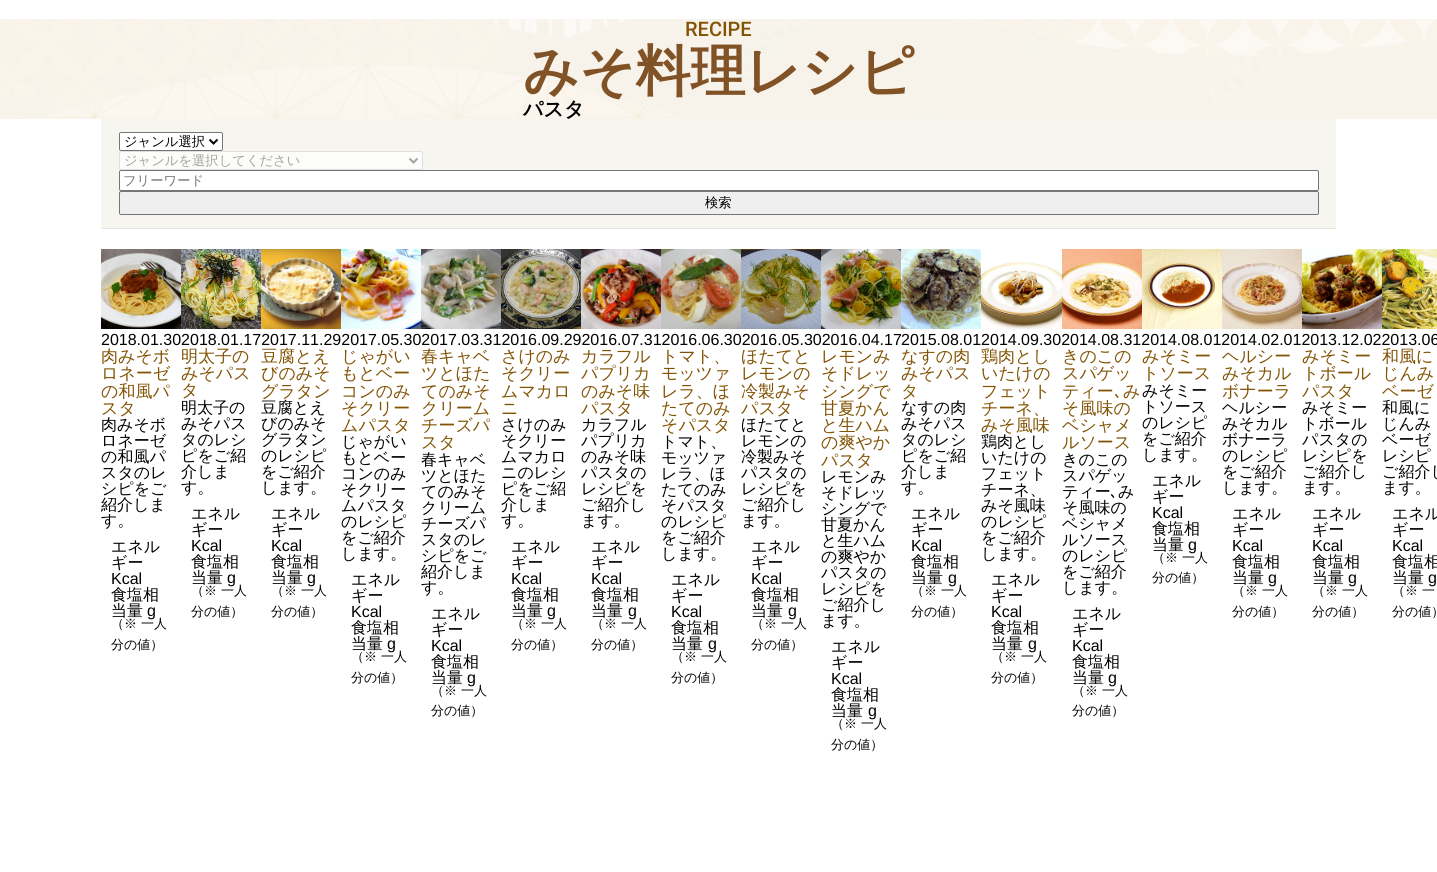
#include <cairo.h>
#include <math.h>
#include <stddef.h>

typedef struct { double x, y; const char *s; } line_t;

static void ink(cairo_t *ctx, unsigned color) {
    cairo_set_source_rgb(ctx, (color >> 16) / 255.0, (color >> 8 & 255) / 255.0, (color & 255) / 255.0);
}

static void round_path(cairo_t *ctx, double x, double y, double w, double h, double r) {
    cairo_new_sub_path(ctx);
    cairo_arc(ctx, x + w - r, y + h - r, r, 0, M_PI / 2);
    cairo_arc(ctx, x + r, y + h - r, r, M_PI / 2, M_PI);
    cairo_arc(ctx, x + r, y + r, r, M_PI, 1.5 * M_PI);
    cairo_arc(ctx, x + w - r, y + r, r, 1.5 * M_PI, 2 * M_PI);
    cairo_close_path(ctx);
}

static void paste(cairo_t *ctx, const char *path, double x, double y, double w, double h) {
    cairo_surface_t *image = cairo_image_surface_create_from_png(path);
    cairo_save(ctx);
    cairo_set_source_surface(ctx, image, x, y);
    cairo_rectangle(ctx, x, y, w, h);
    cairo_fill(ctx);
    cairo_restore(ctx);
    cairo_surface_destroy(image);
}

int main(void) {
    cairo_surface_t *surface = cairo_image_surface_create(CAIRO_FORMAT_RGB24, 1437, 872);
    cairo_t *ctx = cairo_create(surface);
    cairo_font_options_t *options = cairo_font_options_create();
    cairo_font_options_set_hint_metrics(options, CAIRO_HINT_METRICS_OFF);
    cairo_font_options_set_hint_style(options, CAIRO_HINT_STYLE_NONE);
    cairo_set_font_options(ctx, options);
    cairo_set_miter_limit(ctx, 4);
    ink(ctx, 0xFFFFFF);
    cairo_paint(ctx);
    paste(ctx, "media/1.png", 0, 19, 1437, 100);
    cairo_select_font_face(ctx, "Roboto Medium", CAIRO_FONT_SLANT_NORMAL, CAIRO_FONT_WEIGHT_NORMAL);
    cairo_set_font_size(ctx, 20);
    ink(ctx, 0x825303);
    cairo_move_to(ctx, 685, 36);
    cairo_show_text(ctx, "RECIPE");
    cairo_select_font_face(ctx, "WenQuanYi Zen Hei", CAIRO_FONT_SLANT_NORMAL, CAIRO_FONT_WEIGHT_BOLD);
    cairo_set_font_size(ctx, 55);
    ink(ctx, 0x815226);
    cairo_move_to(ctx, 523, 90);
    cairo_show_text(ctx, "みそ料理レシピ");
    cairo_set_font_size(ctx, 20);
    ink(ctx, 0x000000);
    cairo_move_to(ctx, 523, 116);
    cairo_show_text(ctx, "パスタ");
    ink(ctx, 0xF6F5F0);
    cairo_rectangle(ctx, 101, 119, 1235, 109);
    cairo_fill(ctx);
    ink(ctx, 0xE5E5DE);
    cairo_rectangle(ctx, 101, 228, 1235, 1);
    cairo_fill(ctx);
    ink(ctx, 0xFFFFFF);
    round_path(ctx, 119.5, 132.5, 103, 18, 1.5);
    cairo_fill_preserve(ctx);
    ink(ctx, 0x767676);
    cairo_set_line_width(ctx, 1);
    cairo_stroke(ctx);
    cairo_new_path(ctx);
    cairo_move_to(ctx, 209.5, 139.5);
    cairo_line_to(ctx, 213.5, 143.5);
    cairo_line_to(ctx, 217.5, 139.5);
    ink(ctx, 0x000000);
    cairo_set_line_width(ctx, 2);
    cairo_stroke(ctx);
    cairo_select_font_face(ctx, "WenQuanYi Zen Hei Medium", CAIRO_FONT_SLANT_NORMAL, CAIRO_FONT_WEIGHT_NORMAL);
    cairo_set_font_size(ctx, 13.3);
    cairo_move_to(ctx, 124, 146);
    cairo_show_text(ctx, "ジャンル選択");
    ink(ctx, 0xFCFCFB);
    round_path(ctx, 119.5, 151.5, 303, 18, 1.5);
    cairo_fill_preserve(ctx);
    ink(ctx, 0xDFDFDE);
    cairo_set_line_width(ctx, 1);
    cairo_stroke(ctx);
    cairo_new_path(ctx);
    cairo_move_to(ctx, 409.5, 158.5);
    cairo_line_to(ctx, 413.5, 162.5);
    cairo_line_to(ctx, 417.5, 158.5);
    ink(ctx, 0xA3A3A2);
    cairo_set_line_width(ctx, 2);
    cairo_stroke(ctx);
    cairo_move_to(ctx, 124, 165);
    cairo_show_text(ctx, "ジャンルを選択してください");
    ink(ctx, 0xFFFFFF);
    round_path(ctx, 119.5, 170.5, 1199, 20, 1.5);
    cairo_fill_preserve(ctx);
    ink(ctx, 0x767676);
    cairo_set_line_width(ctx, 1);
    cairo_stroke(ctx);
    ink(ctx, 0x757575);
    cairo_move_to(ctx, 123, 185);
    cairo_show_text(ctx, "フリーワード");
    ink(ctx, 0xEFEFEF);
    round_path(ctx, 119.5, 191.5, 1199, 23, 1.5);
    cairo_fill_preserve(ctx);
    ink(ctx, 0x767676);
    cairo_stroke(ctx);
    ink(ctx, 0x000000);
    cairo_move_to(ctx, 705, 207);
    cairo_show_text(ctx, "検索");
    paste(ctx, "media/2.png", 101, 249, 80, 80);
    cairo_select_font_face(ctx, "Liberation Sans", CAIRO_FONT_SLANT_NORMAL, CAIRO_FONT_WEIGHT_NORMAL);
    cairo_set_font_size(ctx, 16);
    cairo_move_to(ctx, 101, 345);
    cairo_show_text(ctx, "2018.01.302018.01.172017.11.292017.05.302017.03.312016.09.292016.07.312016.06.302016.05.302016.04.17");
    cairo_select_font_face(ctx, "WenQuanYi Zen Hei Medium", CAIRO_FONT_SLANT_NORMAL, CAIRO_FONT_WEIGHT_NORMAL);
    cairo_set_font_size(ctx, 17);
    ink(ctx, 0x825303);
    {
        static const line_t items[] = {
            {101, 362, "肉みそボ"},
            {101, 379, "ロネーゼ"},
            {101, 397, "の和風パ"},
            {101, 414, "スタ"},
        };
        for (size_t i = 0; i < sizeof items / sizeof *items; i++) {
            cairo_move_to(ctx, items[i].x, items[i].y);
            cairo_show_text(ctx, items[i].s);
        }
    }
    cairo_set_font_size(ctx, 16);
    ink(ctx, 0x000000);
    {
        static const line_t items[] = {
            {101, 430, "肉みそボ"},
            {101, 446, "ロネーゼ"},
            {101, 462, "の和風パ"},
            {101, 478, "スタのレ"},
            {101, 494, "シピをご"},
            {101, 510, "紹介しま"},
            {101, 526, "す。"},
            {111, 552, "エネル"},
            {111, 568, "ギー"},
        };
        for (size_t i = 0; i < sizeof items / sizeof *items; i++) {
            cairo_move_to(ctx, items[i].x, items[i].y);
            cairo_show_text(ctx, items[i].s);
        }
    }
    cairo_select_font_face(ctx, "Liberation Sans", CAIRO_FONT_SLANT_NORMAL, CAIRO_FONT_WEIGHT_NORMAL);
    cairo_move_to(ctx, 111, 584);
    cairo_show_text(ctx, "Kcal");
    cairo_select_font_face(ctx, "WenQuanYi Zen Hei Medium", CAIRO_FONT_SLANT_NORMAL, CAIRO_FONT_WEIGHT_NORMAL);
    cairo_move_to(ctx, 111, 600);
    cairo_show_text(ctx, "食塩相");
    cairo_move_to(ctx, 111, 616);
    cairo_show_text(ctx, "当量");
    cairo_select_font_face(ctx, "Liberation Sans", CAIRO_FONT_SLANT_NORMAL, CAIRO_FONT_WEIGHT_NORMAL);
    cairo_move_to(ctx, 147, 616);
    cairo_show_text(ctx, "g");
    cairo_select_font_face(ctx, "WenQuanYi Zen Hei Medium", CAIRO_FONT_SLANT_NORMAL, CAIRO_FONT_WEIGHT_NORMAL);
    cairo_set_font_size(ctx, 13);
    cairo_move_to(ctx, 111, 628);
    cairo_show_text(ctx, "（※ 一人");
    cairo_move_to(ctx, 111, 649);
    cairo_show_text(ctx, "分の値）");
    paste(ctx, "media/3.png", 901, 249, 80, 80);
    cairo_select_font_face(ctx, "Liberation Sans", CAIRO_FONT_SLANT_NORMAL, CAIRO_FONT_WEIGHT_NORMAL);
    cairo_set_font_size(ctx, 16);
    cairo_move_to(ctx, 901, 345);
    cairo_show_text(ctx, "2015.08.012014.09.302014.08.312014.08.012014.02.012013.12.022013.06");
    cairo_select_font_face(ctx, "WenQuanYi Zen Hei Medium", CAIRO_FONT_SLANT_NORMAL, CAIRO_FONT_WEIGHT_NORMAL);
    cairo_set_font_size(ctx, 17);
    ink(ctx, 0x825303);
    {
        static const line_t items[] = {
            {901, 362, "なすの肉"},
            {901, 379, "みそパス"},
            {901, 397, "タ"},
        };
        for (size_t i = 0; i < sizeof items / sizeof *items; i++) {
            cairo_move_to(ctx, items[i].x, items[i].y);
            cairo_show_text(ctx, items[i].s);
        }
    }
    cairo_set_font_size(ctx, 16);
    ink(ctx, 0x000000);
    {
        static const line_t items[] = {
            {901, 413, "なすの肉"},
            {901, 429, "みそパス"},
            {901, 445, "タのレシ"},
            {901, 461, "ピをご紹"},
            {901, 477, "介しま"},
            {901, 493, "す。"},
            {911, 519, "エネル"},
            {911, 535, "ギー"},
        };
        for (size_t i = 0; i < sizeof items / sizeof *items; i++) {
            cairo_move_to(ctx, items[i].x, items[i].y);
            cairo_show_text(ctx, items[i].s);
        }
    }
    cairo_select_font_face(ctx, "Liberation Sans", CAIRO_FONT_SLANT_NORMAL, CAIRO_FONT_WEIGHT_NORMAL);
    cairo_move_to(ctx, 911, 551);
    cairo_show_text(ctx, "Kcal");
    cairo_select_font_face(ctx, "WenQuanYi Zen Hei Medium", CAIRO_FONT_SLANT_NORMAL, CAIRO_FONT_WEIGHT_NORMAL);
    cairo_move_to(ctx, 911, 567);
    cairo_show_text(ctx, "食塩相");
    cairo_move_to(ctx, 911, 583);
    cairo_show_text(ctx, "当量");
    cairo_select_font_face(ctx, "Liberation Sans", CAIRO_FONT_SLANT_NORMAL, CAIRO_FONT_WEIGHT_NORMAL);
    cairo_move_to(ctx, 948, 583);
    cairo_show_text(ctx, "g");
    cairo_select_font_face(ctx, "WenQuanYi Zen Hei Medium", CAIRO_FONT_SLANT_NORMAL, CAIRO_FONT_WEIGHT_NORMAL);
    cairo_set_font_size(ctx, 13);
    cairo_move_to(ctx, 911, 595);
    cairo_show_text(ctx, "（※ 一人");
    cairo_move_to(ctx, 911, 616);
    cairo_show_text(ctx, "分の値）");
    paste(ctx, "media/4.png", 181, 249, 80, 80);
    cairo_set_font_size(ctx, 17);
    ink(ctx, 0x825303);
    {
        static const line_t items[] = {
            {181, 362, "明太子の"},
            {181, 379, "みそパス"},
            {181, 396, "タ"},
        };
        for (size_t i = 0; i < sizeof items / sizeof *items; i++) {
            cairo_move_to(ctx, items[i].x, items[i].y);
            cairo_show_text(ctx, items[i].s);
        }
    }
    cairo_set_font_size(ctx, 16);
    ink(ctx, 0x000000);
    {
        static const line_t items[] = {
            {181, 413, "明太子の"},
            {181, 429, "みそパス"},
            {181, 445, "タのレシ"},
            {181, 461, "ピをご紹"},
            {181, 477, "介しま"},
            {181, 493, "す。"},
            {191, 519, "エネル"},
            {191, 535, "ギー"},
        };
        for (size_t i = 0; i < sizeof items / sizeof *items; i++) {
            cairo_move_to(ctx, items[i].x, items[i].y);
            cairo_show_text(ctx, items[i].s);
        }
    }
    cairo_select_font_face(ctx, "Liberation Sans", CAIRO_FONT_SLANT_NORMAL, CAIRO_FONT_WEIGHT_NORMAL);
    cairo_move_to(ctx, 191, 551);
    cairo_show_text(ctx, "Kcal");
    cairo_select_font_face(ctx, "WenQuanYi Zen Hei Medium", CAIRO_FONT_SLANT_NORMAL, CAIRO_FONT_WEIGHT_NORMAL);
    cairo_move_to(ctx, 191, 567);
    cairo_show_text(ctx, "食塩相");
    cairo_move_to(ctx, 191, 583);
    cairo_show_text(ctx, "当量");
    cairo_select_font_face(ctx, "Liberation Sans", CAIRO_FONT_SLANT_NORMAL, CAIRO_FONT_WEIGHT_NORMAL);
    cairo_move_to(ctx, 227, 583);
    cairo_show_text(ctx, "g");
    cairo_select_font_face(ctx, "WenQuanYi Zen Hei Medium", CAIRO_FONT_SLANT_NORMAL, CAIRO_FONT_WEIGHT_NORMAL);
    cairo_set_font_size(ctx, 13);
    cairo_move_to(ctx, 191, 595);
    cairo_show_text(ctx, "（※ 一人");
    cairo_move_to(ctx, 191, 616);
    cairo_show_text(ctx, "分の値）");
    paste(ctx, "media/5.png", 261, 249, 80, 80);
    cairo_set_font_size(ctx, 17);
    ink(ctx, 0x825303);
    {
        static const line_t items[] = {
            {261, 362, "豆腐とえ"},
            {261, 379, "びのみそ"},
            {261, 397, "グラタン"},
        };
        for (size_t i = 0; i < sizeof items / sizeof *items; i++) {
            cairo_move_to(ctx, items[i].x, items[i].y);
            cairo_show_text(ctx, items[i].s);
        }
    }
    cairo_set_font_size(ctx, 16);
    ink(ctx, 0x000000);
    {
        static const line_t items[] = {
            {261, 413, "豆腐とえ"},
            {261, 429, "びのみそ"},
            {261, 445, "グラタン"},
            {261, 461, "のレシピ"},
            {261, 477, "をご紹介"},
            {261, 493, "します。"},
            {271, 519, "エネル"},
            {271, 535, "ギー"},
        };
        for (size_t i = 0; i < sizeof items / sizeof *items; i++) {
            cairo_move_to(ctx, items[i].x, items[i].y);
            cairo_show_text(ctx, items[i].s);
        }
    }
    cairo_select_font_face(ctx, "Liberation Sans", CAIRO_FONT_SLANT_NORMAL, CAIRO_FONT_WEIGHT_NORMAL);
    cairo_move_to(ctx, 271, 551);
    cairo_show_text(ctx, "Kcal");
    cairo_select_font_face(ctx, "WenQuanYi Zen Hei Medium", CAIRO_FONT_SLANT_NORMAL, CAIRO_FONT_WEIGHT_NORMAL);
    cairo_move_to(ctx, 271, 567);
    cairo_show_text(ctx, "食塩相");
    cairo_move_to(ctx, 271, 583);
    cairo_show_text(ctx, "当量");
    cairo_select_font_face(ctx, "Liberation Sans", CAIRO_FONT_SLANT_NORMAL, CAIRO_FONT_WEIGHT_NORMAL);
    cairo_move_to(ctx, 307, 583);
    cairo_show_text(ctx, "g");
    cairo_select_font_face(ctx, "WenQuanYi Zen Hei Medium", CAIRO_FONT_SLANT_NORMAL, CAIRO_FONT_WEIGHT_NORMAL);
    cairo_set_font_size(ctx, 13);
    cairo_move_to(ctx, 271, 595);
    cairo_show_text(ctx, "（※ 一人");
    cairo_move_to(ctx, 271, 616);
    cairo_show_text(ctx, "分の値）");
    paste(ctx, "media/6.png", 341, 249, 80, 80);
    cairo_set_font_size(ctx, 17);
    ink(ctx, 0x825303);
    {
        static const line_t items[] = {
            {341, 362, "じゃがい"},
            {341, 379, "もとベー"},
            {341, 397, "コンのみ"},
            {341, 414, "そクリー"},
            {341, 431, "ムパスタ"},
        };
        for (size_t i = 0; i < sizeof items / sizeof *items; i++) {
            cairo_move_to(ctx, items[i].x, items[i].y);
            cairo_show_text(ctx, items[i].s);
        }
    }
    cairo_set_font_size(ctx, 16);
    ink(ctx, 0x000000);
    {
        static const line_t items[] = {
            {341, 447, "じゃがい"},
            {341, 463, "もとベー"},
            {341, 479, "コンのみ"},
            {341, 495, "そクリー"},
            {341, 511, "ムパスタ"},
            {341, 527, "のレシピ"},
            {341, 543, "をご紹介"},
            {341, 559, "します。"},
            {351, 585, "エネル"},
            {351, 601, "ギー"},
        };
        for (size_t i = 0; i < sizeof items / sizeof *items; i++) {
            cairo_move_to(ctx, items[i].x, items[i].y);
            cairo_show_text(ctx, items[i].s);
        }
    }
    cairo_select_font_face(ctx, "Liberation Sans", CAIRO_FONT_SLANT_NORMAL, CAIRO_FONT_WEIGHT_NORMAL);
    cairo_move_to(ctx, 351, 617);
    cairo_show_text(ctx, "Kcal");
    cairo_select_font_face(ctx, "WenQuanYi Zen Hei Medium", CAIRO_FONT_SLANT_NORMAL, CAIRO_FONT_WEIGHT_NORMAL);
    cairo_move_to(ctx, 351, 633);
    cairo_show_text(ctx, "食塩相");
    cairo_move_to(ctx, 351, 649);
    cairo_show_text(ctx, "当量");
    cairo_select_font_face(ctx, "Liberation Sans", CAIRO_FONT_SLANT_NORMAL, CAIRO_FONT_WEIGHT_NORMAL);
    cairo_move_to(ctx, 387, 649);
    cairo_show_text(ctx, "g");
    cairo_select_font_face(ctx, "WenQuanYi Zen Hei Medium", CAIRO_FONT_SLANT_NORMAL, CAIRO_FONT_WEIGHT_NORMAL);
    cairo_set_font_size(ctx, 13);
    cairo_move_to(ctx, 351, 661);
    cairo_show_text(ctx, "（※ 一人");
    cairo_move_to(ctx, 351, 682);
    cairo_show_text(ctx, "分の値）");
    paste(ctx, "media/7.png", 421, 249, 80, 80);
    cairo_set_font_size(ctx, 17);
    ink(ctx, 0x825303);
    {
        static const line_t items[] = {
            {421, 362, "春キャベ"},
            {421, 379, "ツとほた"},
            {421, 397, "てのみそ"},
            {421, 414, "クリーム"},
            {421, 431, "チーズパ"},
            {421, 448, "スタ"},
        };
        for (size_t i = 0; i < sizeof items / sizeof *items; i++) {
            cairo_move_to(ctx, items[i].x, items[i].y);
            cairo_show_text(ctx, items[i].s);
        }
    }
    cairo_set_font_size(ctx, 16);
    ink(ctx, 0x000000);
    {
        static const line_t items[] = {
            {421, 465, "春キャベ"},
            {421, 481, "ツとほた"},
            {421, 497, "てのみそ"},
            {421, 513, "クリーム"},
            {421, 529, "チーズパ"},
            {421, 545, "スタのレ"},
            {421, 561, "シピをご"},
            {421, 577, "紹介しま"},
            {421, 593, "す。"},
            {431, 619, "エネル"},
            {431, 635, "ギー"},
        };
        for (size_t i = 0; i < sizeof items / sizeof *items; i++) {
            cairo_move_to(ctx, items[i].x, items[i].y);
            cairo_show_text(ctx, items[i].s);
        }
    }
    cairo_select_font_face(ctx, "Liberation Sans", CAIRO_FONT_SLANT_NORMAL, CAIRO_FONT_WEIGHT_NORMAL);
    cairo_move_to(ctx, 431, 651);
    cairo_show_text(ctx, "Kcal");
    cairo_select_font_face(ctx, "WenQuanYi Zen Hei Medium", CAIRO_FONT_SLANT_NORMAL, CAIRO_FONT_WEIGHT_NORMAL);
    cairo_move_to(ctx, 431, 667);
    cairo_show_text(ctx, "食塩相");
    cairo_move_to(ctx, 431, 683);
    cairo_show_text(ctx, "当量");
    cairo_select_font_face(ctx, "Liberation Sans", CAIRO_FONT_SLANT_NORMAL, CAIRO_FONT_WEIGHT_NORMAL);
    cairo_move_to(ctx, 467, 683);
    cairo_show_text(ctx, "g");
    cairo_select_font_face(ctx, "WenQuanYi Zen Hei Medium", CAIRO_FONT_SLANT_NORMAL, CAIRO_FONT_WEIGHT_NORMAL);
    cairo_set_font_size(ctx, 13);
    cairo_move_to(ctx, 431, 695);
    cairo_show_text(ctx, "（※ 一人");
    cairo_move_to(ctx, 431, 715);
    cairo_show_text(ctx, "分の値）");
    paste(ctx, "media/8.png", 501, 249, 80, 80);
    cairo_set_font_size(ctx, 17);
    ink(ctx, 0x825303);
    {
        static const line_t items[] = {
            {501, 362, "さけのみ"},
            {501, 379, "そクリー"},
            {501, 397, "ムマカロ"},
            {501, 414, "ニ"},
        };
        for (size_t i = 0; i < sizeof items / sizeof *items; i++) {
            cairo_move_to(ctx, items[i].x, items[i].y);
            cairo_show_text(ctx, items[i].s);
        }
    }
    cairo_set_font_size(ctx, 16);
    ink(ctx, 0x000000);
    {
        static const line_t items[] = {
            {501, 430, "さけのみ"},
            {501, 446, "そクリー"},
            {501, 462, "ムマカロ"},
            {501, 478, "ニのレシ"},
            {501, 494, "ピをご紹"},
            {501, 510, "介しま"},
            {501, 526, "す。"},
            {511, 552, "エネル"},
            {511, 568, "ギー"},
        };
        for (size_t i = 0; i < sizeof items / sizeof *items; i++) {
            cairo_move_to(ctx, items[i].x, items[i].y);
            cairo_show_text(ctx, items[i].s);
        }
    }
    cairo_select_font_face(ctx, "Liberation Sans", CAIRO_FONT_SLANT_NORMAL, CAIRO_FONT_WEIGHT_NORMAL);
    cairo_move_to(ctx, 511, 584);
    cairo_show_text(ctx, "Kcal");
    cairo_select_font_face(ctx, "WenQuanYi Zen Hei Medium", CAIRO_FONT_SLANT_NORMAL, CAIRO_FONT_WEIGHT_NORMAL);
    cairo_move_to(ctx, 511, 600);
    cairo_show_text(ctx, "食塩相");
    cairo_move_to(ctx, 511, 616);
    cairo_show_text(ctx, "当量");
    cairo_select_font_face(ctx, "Liberation Sans", CAIRO_FONT_SLANT_NORMAL, CAIRO_FONT_WEIGHT_NORMAL);
    cairo_move_to(ctx, 547, 616);
    cairo_show_text(ctx, "g");
    cairo_select_font_face(ctx, "WenQuanYi Zen Hei Medium", CAIRO_FONT_SLANT_NORMAL, CAIRO_FONT_WEIGHT_NORMAL);
    cairo_set_font_size(ctx, 13);
    cairo_move_to(ctx, 511, 628);
    cairo_show_text(ctx, "（※ 一人");
    cairo_move_to(ctx, 511, 649);
    cairo_show_text(ctx, "分の値）");
    paste(ctx, "media/9.png", 581, 249, 80, 80);
    cairo_set_font_size(ctx, 17);
    ink(ctx, 0x825303);
    {
        static const line_t items[] = {
            {581, 362, "カラフル"},
            {581, 379, "パプリカ"},
            {581, 397, "のみそ味"},
            {581, 414, "パスタ"},
        };
        for (size_t i = 0; i < sizeof items / sizeof *items; i++) {
            cairo_move_to(ctx, items[i].x, items[i].y);
            cairo_show_text(ctx, items[i].s);
        }
    }
    cairo_set_font_size(ctx, 16);
    ink(ctx, 0x000000);
    {
        static const line_t items[] = {
            {581, 430, "カラフル"},
            {581, 446, "パプリカ"},
            {581, 462, "のみそ味"},
            {581, 478, "パスタの"},
            {581, 494, "レシピを"},
            {581, 510, "ご紹介し"},
            {581, 526, "ます。"},
            {591, 552, "エネル"},
            {591, 568, "ギー"},
        };
        for (size_t i = 0; i < sizeof items / sizeof *items; i++) {
            cairo_move_to(ctx, items[i].x, items[i].y);
            cairo_show_text(ctx, items[i].s);
        }
    }
    cairo_select_font_face(ctx, "Liberation Sans", CAIRO_FONT_SLANT_NORMAL, CAIRO_FONT_WEIGHT_NORMAL);
    cairo_move_to(ctx, 591, 584);
    cairo_show_text(ctx, "Kcal");
    cairo_select_font_face(ctx, "WenQuanYi Zen Hei Medium", CAIRO_FONT_SLANT_NORMAL, CAIRO_FONT_WEIGHT_NORMAL);
    cairo_move_to(ctx, 591, 600);
    cairo_show_text(ctx, "食塩相");
    cairo_move_to(ctx, 591, 616);
    cairo_show_text(ctx, "当量");
    cairo_select_font_face(ctx, "Liberation Sans", CAIRO_FONT_SLANT_NORMAL, CAIRO_FONT_WEIGHT_NORMAL);
    cairo_move_to(ctx, 628, 616);
    cairo_show_text(ctx, "g");
    cairo_select_font_face(ctx, "WenQuanYi Zen Hei Medium", CAIRO_FONT_SLANT_NORMAL, CAIRO_FONT_WEIGHT_NORMAL);
    cairo_set_font_size(ctx, 13);
    cairo_move_to(ctx, 591, 628);
    cairo_show_text(ctx, "（※ 一人");
    cairo_move_to(ctx, 591, 649);
    cairo_show_text(ctx, "分の値）");
    paste(ctx, "media/10.png", 661, 249, 80, 80);
    cairo_set_font_size(ctx, 17);
    ink(ctx, 0x825303);
    {
        static const line_t items[] = {
            {661, 362, "トマト、"},
            {661, 379, "モッツァ"},
            {661, 397, "レラ、ほ"},
            {661, 414, "たてのみ"},
            {661, 431, "そパスタ"},
        };
        for (size_t i = 0; i < sizeof items / sizeof *items; i++) {
            cairo_move_to(ctx, items[i].x, items[i].y);
            cairo_show_text(ctx, items[i].s);
        }
    }
    cairo_set_font_size(ctx, 16);
    ink(ctx, 0x000000);
    {
        static const line_t items[] = {
            {661, 447, "トマト、"},
            {661, 463, "モッツァ"},
            {661, 479, "レラ、ほ"},
            {661, 495, "たてのみ"},
            {661, 511, "そパスタ"},
            {661, 527, "のレシピ"},
            {661, 543, "をご紹介"},
            {661, 559, "します。"},
            {671, 585, "エネル"},
            {671, 601, "ギー"},
        };
        for (size_t i = 0; i < sizeof items / sizeof *items; i++) {
            cairo_move_to(ctx, items[i].x, items[i].y);
            cairo_show_text(ctx, items[i].s);
        }
    }
    cairo_select_font_face(ctx, "Liberation Sans", CAIRO_FONT_SLANT_NORMAL, CAIRO_FONT_WEIGHT_NORMAL);
    cairo_move_to(ctx, 671, 617);
    cairo_show_text(ctx, "Kcal");
    cairo_select_font_face(ctx, "WenQuanYi Zen Hei Medium", CAIRO_FONT_SLANT_NORMAL, CAIRO_FONT_WEIGHT_NORMAL);
    cairo_move_to(ctx, 671, 633);
    cairo_show_text(ctx, "食塩相");
    cairo_move_to(ctx, 671, 649);
    cairo_show_text(ctx, "当量");
    cairo_select_font_face(ctx, "Liberation Sans", CAIRO_FONT_SLANT_NORMAL, CAIRO_FONT_WEIGHT_NORMAL);
    cairo_move_to(ctx, 708, 649);
    cairo_show_text(ctx, "g");
    cairo_select_font_face(ctx, "WenQuanYi Zen Hei Medium", CAIRO_FONT_SLANT_NORMAL, CAIRO_FONT_WEIGHT_NORMAL);
    cairo_set_font_size(ctx, 13);
    cairo_move_to(ctx, 671, 661);
    cairo_show_text(ctx, "（※ 一人");
    cairo_move_to(ctx, 671, 682);
    cairo_show_text(ctx, "分の値）");
    paste(ctx, "media/11.png", 741, 249, 80, 80);
    cairo_set_font_size(ctx, 17);
    ink(ctx, 0x825303);
    {
        static const line_t items[] = {
            {741, 362, "ほたてと"},
            {741, 379, "レモンの"},
            {741, 397, "冷製みそ"},
            {741, 414, "パスタ"},
        };
        for (size_t i = 0; i < sizeof items / sizeof *items; i++) {
            cairo_move_to(ctx, items[i].x, items[i].y);
            cairo_show_text(ctx, items[i].s);
        }
    }
    cairo_set_font_size(ctx, 16);
    ink(ctx, 0x000000);
    {
        static const line_t items[] = {
            {741, 430, "ほたてと"},
            {741, 446, "レモンの"},
            {741, 462, "冷製みそ"},
            {741, 478, "パスタの"},
            {741, 494, "レシピを"},
            {741, 510, "ご紹介し"},
            {741, 526, "ます。"},
            {751, 552, "エネル"},
            {751, 568, "ギー"},
        };
        for (size_t i = 0; i < sizeof items / sizeof *items; i++) {
            cairo_move_to(ctx, items[i].x, items[i].y);
            cairo_show_text(ctx, items[i].s);
        }
    }
    cairo_select_font_face(ctx, "Liberation Sans", CAIRO_FONT_SLANT_NORMAL, CAIRO_FONT_WEIGHT_NORMAL);
    cairo_move_to(ctx, 751, 584);
    cairo_show_text(ctx, "Kcal");
    cairo_select_font_face(ctx, "WenQuanYi Zen Hei Medium", CAIRO_FONT_SLANT_NORMAL, CAIRO_FONT_WEIGHT_NORMAL);
    cairo_move_to(ctx, 751, 600);
    cairo_show_text(ctx, "食塩相");
    cairo_move_to(ctx, 751, 616);
    cairo_show_text(ctx, "当量");
    cairo_select_font_face(ctx, "Liberation Sans", CAIRO_FONT_SLANT_NORMAL, CAIRO_FONT_WEIGHT_NORMAL);
    cairo_move_to(ctx, 788, 616);
    cairo_show_text(ctx, "g");
    cairo_select_font_face(ctx, "WenQuanYi Zen Hei Medium", CAIRO_FONT_SLANT_NORMAL, CAIRO_FONT_WEIGHT_NORMAL);
    cairo_set_font_size(ctx, 13);
    cairo_move_to(ctx, 751, 628);
    cairo_show_text(ctx, "（※ 一人");
    cairo_move_to(ctx, 751, 649);
    cairo_show_text(ctx, "分の値）");
    paste(ctx, "media/12.png", 821, 249, 80, 80);
    cairo_set_font_size(ctx, 17);
    ink(ctx, 0x825303);
    {
        static const line_t items[] = {
            {821, 362, "レモンみ"},
            {821, 379, "そドレッ"},
            {821, 397, "シングで"},
            {821, 414, "甘夏かん"},
            {821, 431, "と生ハム"},
            {821, 448, "の爽やか"},
            {821, 466, "パスタ"},
        };
        for (size_t i = 0; i < sizeof items / sizeof *items; i++) {
            cairo_move_to(ctx, items[i].x, items[i].y);
            cairo_show_text(ctx, items[i].s);
        }
    }
    cairo_set_font_size(ctx, 16);
    ink(ctx, 0x000000);
    {
        static const line_t items[] = {
            {821, 482, "レモンみ"},
            {821, 498, "そドレッ"},
            {821, 514, "シングで"},
            {821, 530, "甘夏かん"},
            {821, 546, "と生ハム"},
            {821, 562, "の爽やか"},
            {821, 578, "パスタの"},
            {821, 594, "レシピを"},
            {821, 610, "ご紹介し"},
            {821, 626, "ます。"},
            {831, 652, "エネル"},
            {831, 668, "ギー"},
        };
        for (size_t i = 0; i < sizeof items / sizeof *items; i++) {
            cairo_move_to(ctx, items[i].x, items[i].y);
            cairo_show_text(ctx, items[i].s);
        }
    }
    cairo_select_font_face(ctx, "Liberation Sans", CAIRO_FONT_SLANT_NORMAL, CAIRO_FONT_WEIGHT_NORMAL);
    cairo_move_to(ctx, 831, 684);
    cairo_show_text(ctx, "Kcal");
    cairo_select_font_face(ctx, "WenQuanYi Zen Hei Medium", CAIRO_FONT_SLANT_NORMAL, CAIRO_FONT_WEIGHT_NORMAL);
    cairo_move_to(ctx, 831, 700);
    cairo_show_text(ctx, "食塩相");
    cairo_move_to(ctx, 831, 716);
    cairo_show_text(ctx, "当量");
    cairo_select_font_face(ctx, "Liberation Sans", CAIRO_FONT_SLANT_NORMAL, CAIRO_FONT_WEIGHT_NORMAL);
    cairo_move_to(ctx, 868, 716);
    cairo_show_text(ctx, "g");
    cairo_select_font_face(ctx, "WenQuanYi Zen Hei Medium", CAIRO_FONT_SLANT_NORMAL, CAIRO_FONT_WEIGHT_NORMAL);
    cairo_set_font_size(ctx, 13);
    cairo_move_to(ctx, 831, 728);
    cairo_show_text(ctx, "（※ 一人");
    cairo_move_to(ctx, 831, 749);
    cairo_show_text(ctx, "分の値）");
    paste(ctx, "media/13.png", 981, 262, 81, 67);
    cairo_set_font_size(ctx, 17);
    ink(ctx, 0x825303);
    {
        static const line_t items[] = {
            {981, 362, "鶏肉とし"},
            {981, 379, "いたけの"},
            {981, 397, "フェット"},
            {981, 414, "チーネ、"},
            {981, 431, "みそ風味"},
        };
        for (size_t i = 0; i < sizeof items / sizeof *items; i++) {
            cairo_move_to(ctx, items[i].x, items[i].y);
            cairo_show_text(ctx, items[i].s);
        }
    }
    cairo_set_font_size(ctx, 16);
    ink(ctx, 0x000000);
    {
        static const line_t items[] = {
            {981, 447, "鶏肉とし"},
            {981, 463, "いたけの"},
            {981, 479, "フェット"},
            {981, 495, "チーネ、"},
            {981, 511, "みそ風味"},
            {981, 527, "のレシピ"},
            {981, 543, "をご紹介"},
            {981, 559, "します。"},
            {991, 585, "エネル"},
            {991, 601, "ギー"},
        };
        for (size_t i = 0; i < sizeof items / sizeof *items; i++) {
            cairo_move_to(ctx, items[i].x, items[i].y);
            cairo_show_text(ctx, items[i].s);
        }
    }
    cairo_select_font_face(ctx, "Liberation Sans", CAIRO_FONT_SLANT_NORMAL, CAIRO_FONT_WEIGHT_NORMAL);
    cairo_move_to(ctx, 991, 617);
    cairo_show_text(ctx, "Kcal");
    cairo_select_font_face(ctx, "WenQuanYi Zen Hei Medium", CAIRO_FONT_SLANT_NORMAL, CAIRO_FONT_WEIGHT_NORMAL);
    cairo_move_to(ctx, 991, 633);
    cairo_show_text(ctx, "食塩相");
    cairo_move_to(ctx, 991, 649);
    cairo_show_text(ctx, "当量");
    cairo_select_font_face(ctx, "Liberation Sans", CAIRO_FONT_SLANT_NORMAL, CAIRO_FONT_WEIGHT_NORMAL);
    cairo_move_to(ctx, 1028, 649);
    cairo_show_text(ctx, "g");
    cairo_select_font_face(ctx, "WenQuanYi Zen Hei Medium", CAIRO_FONT_SLANT_NORMAL, CAIRO_FONT_WEIGHT_NORMAL);
    cairo_set_font_size(ctx, 13);
    cairo_move_to(ctx, 991, 661);
    cairo_show_text(ctx, "（※ 一人");
    cairo_move_to(ctx, 991, 682);
    cairo_show_text(ctx, "分の値）");
    paste(ctx, "media/14.png", 1062, 249, 80, 80);
    cairo_set_font_size(ctx, 17);
    ink(ctx, 0x825303);
    {
        static const line_t items[] = {
            {1062, 362, "きのこの"},
            {1062, 379, "スパゲッ"},
            {1062, 397, "ティー"},
        };
        for (size_t i = 0; i < sizeof items / sizeof *items; i++) {
            cairo_move_to(ctx, items[i].x, items[i].y);
            cairo_show_text(ctx, items[i].s);
        }
    }
    cairo_select_font_face(ctx, "IPAPGothic", CAIRO_FONT_SLANT_NORMAL, CAIRO_FONT_WEIGHT_NORMAL);
    cairo_move_to(ctx, 1114, 397);
    cairo_show_text(ctx, "､");
    cairo_select_font_face(ctx, "WenQuanYi Zen Hei Medium", CAIRO_FONT_SLANT_NORMAL, CAIRO_FONT_WEIGHT_NORMAL);
    {
        static const line_t items[] = {
            {1123, 397, "み"},
            {1062, 414, "そ風味の"},
            {1062, 431, "ベシャメ"},
            {1062, 448, "ルソース"},
        };
        for (size_t i = 0; i < sizeof items / sizeof *items; i++) {
            cairo_move_to(ctx, items[i].x, items[i].y);
            cairo_show_text(ctx, items[i].s);
        }
    }
    cairo_set_font_size(ctx, 16);
    ink(ctx, 0x000000);
    {
        static const line_t items[] = {
            {1062, 465, "きのこの"},
            {1062, 481, "スパゲッ"},
            {1062, 497, "ティー"},
        };
        for (size_t i = 0; i < sizeof items / sizeof *items; i++) {
            cairo_move_to(ctx, items[i].x, items[i].y);
            cairo_show_text(ctx, items[i].s);
        }
    }
    cairo_select_font_face(ctx, "IPAPGothic", CAIRO_FONT_SLANT_NORMAL, CAIRO_FONT_WEIGHT_NORMAL);
    cairo_move_to(ctx, 1110, 497);
    cairo_show_text(ctx, "､");
    cairo_select_font_face(ctx, "WenQuanYi Zen Hei Medium", CAIRO_FONT_SLANT_NORMAL, CAIRO_FONT_WEIGHT_NORMAL);
    {
        static const line_t items[] = {
            {1118, 497, "み"},
            {1062, 513, "そ風味の"},
            {1062, 529, "ベシャメ"},
            {1062, 545, "ルソース"},
            {1062, 561, "のレシピ"},
            {1062, 577, "をご紹介"},
            {1062, 593, "します。"},
            {1072, 619, "エネル"},
            {1072, 635, "ギー"},
        };
        for (size_t i = 0; i < sizeof items / sizeof *items; i++) {
            cairo_move_to(ctx, items[i].x, items[i].y);
            cairo_show_text(ctx, items[i].s);
        }
    }
    cairo_select_font_face(ctx, "Liberation Sans", CAIRO_FONT_SLANT_NORMAL, CAIRO_FONT_WEIGHT_NORMAL);
    cairo_move_to(ctx, 1072, 651);
    cairo_show_text(ctx, "Kcal");
    cairo_select_font_face(ctx, "WenQuanYi Zen Hei Medium", CAIRO_FONT_SLANT_NORMAL, CAIRO_FONT_WEIGHT_NORMAL);
    cairo_move_to(ctx, 1072, 667);
    cairo_show_text(ctx, "食塩相");
    cairo_move_to(ctx, 1072, 683);
    cairo_show_text(ctx, "当量");
    cairo_select_font_face(ctx, "Liberation Sans", CAIRO_FONT_SLANT_NORMAL, CAIRO_FONT_WEIGHT_NORMAL);
    cairo_move_to(ctx, 1108, 683);
    cairo_show_text(ctx, "g");
    cairo_select_font_face(ctx, "WenQuanYi Zen Hei Medium", CAIRO_FONT_SLANT_NORMAL, CAIRO_FONT_WEIGHT_NORMAL);
    cairo_set_font_size(ctx, 13);
    cairo_move_to(ctx, 1072, 695);
    cairo_show_text(ctx, "（※ 一人");
    cairo_move_to(ctx, 1072, 715);
    cairo_show_text(ctx, "分の値）");
    paste(ctx, "media/15.png", 1142, 249, 80, 80);
    cairo_set_font_size(ctx, 17);
    ink(ctx, 0x825303);
    cairo_move_to(ctx, 1142, 362);
    cairo_show_text(ctx, "みそミー");
    cairo_move_to(ctx, 1142, 379);
    cairo_show_text(ctx, "トソース");
    cairo_set_font_size(ctx, 16);
    ink(ctx, 0x000000);
    {
        static const line_t items[] = {
            {1142, 396, "みそミー"},
            {1142, 412, "トソース"},
            {1142, 428, "のレシピ"},
            {1142, 444, "をご紹介"},
            {1142, 460, "します。"},
            {1152, 486, "エネル"},
            {1152, 502, "ギー"},
        };
        for (size_t i = 0; i < sizeof items / sizeof *items; i++) {
            cairo_move_to(ctx, items[i].x, items[i].y);
            cairo_show_text(ctx, items[i].s);
        }
    }
    cairo_select_font_face(ctx, "Liberation Sans", CAIRO_FONT_SLANT_NORMAL, CAIRO_FONT_WEIGHT_NORMAL);
    cairo_move_to(ctx, 1152, 518);
    cairo_show_text(ctx, "Kcal");
    cairo_select_font_face(ctx, "WenQuanYi Zen Hei Medium", CAIRO_FONT_SLANT_NORMAL, CAIRO_FONT_WEIGHT_NORMAL);
    cairo_move_to(ctx, 1152, 534);
    cairo_show_text(ctx, "食塩相");
    cairo_move_to(ctx, 1152, 550);
    cairo_show_text(ctx, "当量");
    cairo_select_font_face(ctx, "Liberation Sans", CAIRO_FONT_SLANT_NORMAL, CAIRO_FONT_WEIGHT_NORMAL);
    cairo_move_to(ctx, 1188, 550);
    cairo_show_text(ctx, "g");
    cairo_select_font_face(ctx, "WenQuanYi Zen Hei Medium", CAIRO_FONT_SLANT_NORMAL, CAIRO_FONT_WEIGHT_NORMAL);
    cairo_set_font_size(ctx, 13);
    cairo_move_to(ctx, 1152, 562);
    cairo_show_text(ctx, "（※ 一人");
    cairo_move_to(ctx, 1152, 582);
    cairo_show_text(ctx, "分の値）");
    paste(ctx, "media/16.png", 1222, 249, 80, 80);
    cairo_set_font_size(ctx, 17);
    ink(ctx, 0x825303);
    {
        static const line_t items[] = {
            {1222, 362, "ヘルシー"},
            {1222, 379, "みそカル"},
            {1222, 397, "ボナーラ"},
        };
        for (size_t i = 0; i < sizeof items / sizeof *items; i++) {
            cairo_move_to(ctx, items[i].x, items[i].y);
            cairo_show_text(ctx, items[i].s);
        }
    }
    cairo_set_font_size(ctx, 16);
    ink(ctx, 0x000000);
    {
        static const line_t items[] = {
            {1222, 413, "ヘルシー"},
            {1222, 429, "みそカル"},
            {1222, 445, "ボナーラ"},
            {1222, 461, "のレシピ"},
            {1222, 477, "をご紹介"},
            {1222, 493, "します。"},
            {1232, 519, "エネル"},
            {1232, 535, "ギー"},
        };
        for (size_t i = 0; i < sizeof items / sizeof *items; i++) {
            cairo_move_to(ctx, items[i].x, items[i].y);
            cairo_show_text(ctx, items[i].s);
        }
    }
    cairo_select_font_face(ctx, "Liberation Sans", CAIRO_FONT_SLANT_NORMAL, CAIRO_FONT_WEIGHT_NORMAL);
    cairo_move_to(ctx, 1232, 551);
    cairo_show_text(ctx, "Kcal");
    cairo_select_font_face(ctx, "WenQuanYi Zen Hei Medium", CAIRO_FONT_SLANT_NORMAL, CAIRO_FONT_WEIGHT_NORMAL);
    cairo_move_to(ctx, 1232, 567);
    cairo_show_text(ctx, "食塩相");
    cairo_move_to(ctx, 1232, 583);
    cairo_show_text(ctx, "当量");
    cairo_select_font_face(ctx, "Liberation Sans", CAIRO_FONT_SLANT_NORMAL, CAIRO_FONT_WEIGHT_NORMAL);
    cairo_move_to(ctx, 1268, 583);
    cairo_show_text(ctx, "g");
    cairo_select_font_face(ctx, "WenQuanYi Zen Hei Medium", CAIRO_FONT_SLANT_NORMAL, CAIRO_FONT_WEIGHT_NORMAL);
    cairo_set_font_size(ctx, 13);
    cairo_move_to(ctx, 1232, 595);
    cairo_show_text(ctx, "（※ 一人");
    cairo_move_to(ctx, 1232, 616);
    cairo_show_text(ctx, "分の値）");
    paste(ctx, "media/17.png", 1302, 249, 80, 80);
    cairo_set_font_size(ctx, 17);
    ink(ctx, 0x825303);
    {
        static const line_t items[] = {
            {1302, 362, "みそミー"},
            {1302, 379, "トボール"},
            {1302, 397, "パスタ"},
        };
        for (size_t i = 0; i < sizeof items / sizeof *items; i++) {
            cairo_move_to(ctx, items[i].x, items[i].y);
            cairo_show_text(ctx, items[i].s);
        }
    }
    cairo_set_font_size(ctx, 16);
    ink(ctx, 0x000000);
    {
        static const line_t items[] = {
            {1302, 413, "みそミー"},
            {1302, 429, "トボール"},
            {1302, 445, "パスタの"},
            {1302, 461, "レシピを"},
            {1302, 477, "ご紹介し"},
            {1302, 493, "ます。"},
            {1312, 519, "エネル"},
            {1312, 535, "ギー"},
        };
        for (size_t i = 0; i < sizeof items / sizeof *items; i++) {
            cairo_move_to(ctx, items[i].x, items[i].y);
            cairo_show_text(ctx, items[i].s);
        }
    }
    cairo_select_font_face(ctx, "Liberation Sans", CAIRO_FONT_SLANT_NORMAL, CAIRO_FONT_WEIGHT_NORMAL);
    cairo_move_to(ctx, 1312, 551);
    cairo_show_text(ctx, "Kcal");
    cairo_select_font_face(ctx, "WenQuanYi Zen Hei Medium", CAIRO_FONT_SLANT_NORMAL, CAIRO_FONT_WEIGHT_NORMAL);
    cairo_move_to(ctx, 1312, 567);
    cairo_show_text(ctx, "食塩相");
    cairo_move_to(ctx, 1312, 583);
    cairo_show_text(ctx, "当量");
    cairo_select_font_face(ctx, "Liberation Sans", CAIRO_FONT_SLANT_NORMAL, CAIRO_FONT_WEIGHT_NORMAL);
    cairo_move_to(ctx, 1348, 583);
    cairo_show_text(ctx, "g");
    cairo_select_font_face(ctx, "WenQuanYi Zen Hei Medium", CAIRO_FONT_SLANT_NORMAL, CAIRO_FONT_WEIGHT_NORMAL);
    cairo_set_font_size(ctx, 13);
    cairo_move_to(ctx, 1312, 595);
    cairo_show_text(ctx, "（※ 一人");
    cairo_move_to(ctx, 1312, 616);
    cairo_show_text(ctx, "分の値）");
    paste(ctx, "media/18.png", 1382, 249, 55, 80);
    cairo_set_font_size(ctx, 17);
    ink(ctx, 0x825303);
    {
        static const line_t items[] = {
            {1382, 362, "和風に"},
            {1382, 379, "じんみ"},
            {1382, 397, "ベーゼ"},
        };
        for (size_t i = 0; i < sizeof items / sizeof *items; i++) {
            cairo_move_to(ctx, items[i].x, items[i].y);
            cairo_show_text(ctx, items[i].s);
        }
    }
    cairo_set_font_size(ctx, 16);
    ink(ctx, 0x000000);
    {
        static const line_t items[] = {
            {1382, 413, "和風に"},
            {1382, 429, "じんみ"},
            {1382, 445, "ベーゼ"},
            {1382, 461, "レシピ"},
            {1382, 477, "ご紹介し"},
            {1382, 493, "ます。"},
            {1392, 519, "エネル"},
            {1392, 535, "ギー"},
        };
        for (size_t i = 0; i < sizeof items / sizeof *items; i++) {
            cairo_move_to(ctx, items[i].x, items[i].y);
            cairo_show_text(ctx, items[i].s);
        }
    }
    cairo_select_font_face(ctx, "Liberation Sans", CAIRO_FONT_SLANT_NORMAL, CAIRO_FONT_WEIGHT_NORMAL);
    cairo_move_to(ctx, 1392, 551);
    cairo_show_text(ctx, "Kcal");
    cairo_select_font_face(ctx, "WenQuanYi Zen Hei Medium", CAIRO_FONT_SLANT_NORMAL, CAIRO_FONT_WEIGHT_NORMAL);
    cairo_move_to(ctx, 1392, 567);
    cairo_show_text(ctx, "食塩相");
    cairo_move_to(ctx, 1392, 583);
    cairo_show_text(ctx, "当量");
    cairo_select_font_face(ctx, "Liberation Sans", CAIRO_FONT_SLANT_NORMAL, CAIRO_FONT_WEIGHT_NORMAL);
    cairo_move_to(ctx, 1428, 583);
    cairo_show_text(ctx, "g");
    cairo_select_font_face(ctx, "WenQuanYi Zen Hei Medium", CAIRO_FONT_SLANT_NORMAL, CAIRO_FONT_WEIGHT_NORMAL);
    cairo_set_font_size(ctx, 13);
    cairo_move_to(ctx, 1392, 595);
    cairo_show_text(ctx, "（※ 一");
    cairo_move_to(ctx, 1392, 616);
    cairo_show_text(ctx, "分の値）");
    cairo_surface_write_to_png(surface, "image.png");
    cairo_font_options_destroy(options);
    cairo_destroy(ctx);
    cairo_surface_destroy(surface);
    return 0;
}
